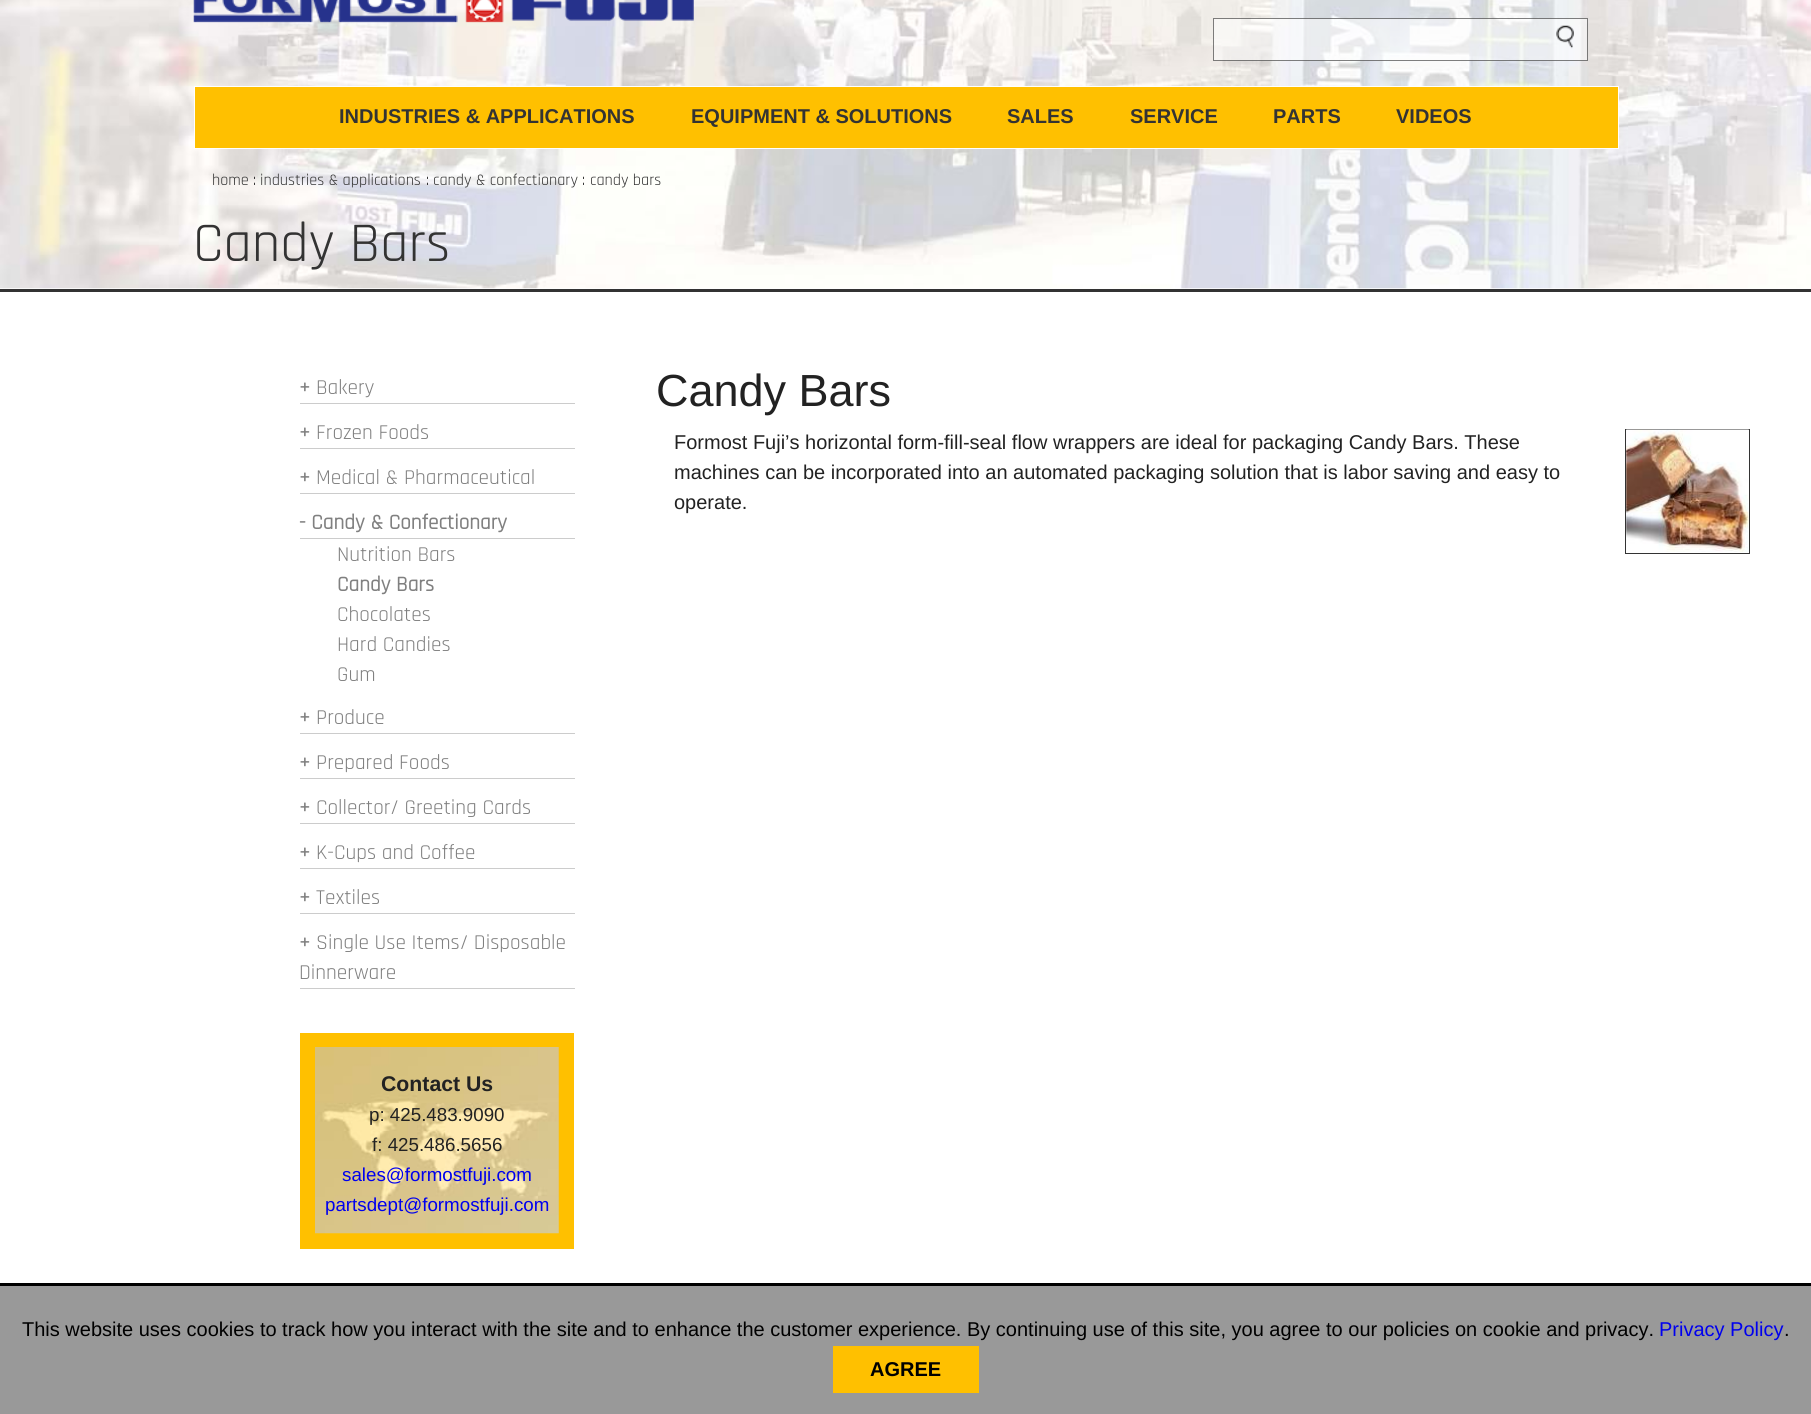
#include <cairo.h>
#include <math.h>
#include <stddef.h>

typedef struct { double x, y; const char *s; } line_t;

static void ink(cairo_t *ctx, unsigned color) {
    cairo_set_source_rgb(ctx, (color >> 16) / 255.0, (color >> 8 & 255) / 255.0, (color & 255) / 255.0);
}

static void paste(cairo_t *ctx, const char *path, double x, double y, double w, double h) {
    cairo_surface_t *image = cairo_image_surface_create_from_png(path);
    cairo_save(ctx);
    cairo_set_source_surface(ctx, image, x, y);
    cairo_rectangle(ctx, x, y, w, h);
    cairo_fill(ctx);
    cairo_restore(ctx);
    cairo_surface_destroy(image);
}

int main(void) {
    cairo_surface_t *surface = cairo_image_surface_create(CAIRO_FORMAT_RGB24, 1811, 1414);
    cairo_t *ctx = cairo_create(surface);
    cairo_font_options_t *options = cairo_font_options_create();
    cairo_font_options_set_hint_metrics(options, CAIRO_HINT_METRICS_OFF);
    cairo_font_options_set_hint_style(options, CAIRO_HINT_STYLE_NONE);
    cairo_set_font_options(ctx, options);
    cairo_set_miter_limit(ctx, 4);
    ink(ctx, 0xFFFFFF);
    cairo_paint(ctx);
    paste(ctx, "media/1.png", 0, 0, 1811, 289);
    ink(ctx, 0x333333);
    cairo_rectangle(ctx, 0, 289, 1811, 3);
    cairo_fill(ctx);
    paste(ctx, "media/2.png", 193, 0, 501, 23);
    cairo_set_source_rgba(ctx, 1, 1, 1, 0.5);
    cairo_rectangle(ctx, 1213, 18, 375, 43);
    cairo_fill(ctx);
    cairo_rectangle(ctx, 1213.5, 18.5, 374, 42);
    cairo_set_source_rgba(ctx, 0, 0, 0, 0.5);
    cairo_set_line_width(ctx, 1);
    cairo_stroke(ctx);
    paste(ctx, "media/3.png", 1556, 25, 18, 24);
    ink(ctx, 0xFFC000);
    cairo_rectangle(ctx, 194.5, 86.5, 1424, 62);
    cairo_fill_preserve(ctx);
    ink(ctx, 0xFFFFFF);
    cairo_stroke(ctx);
    cairo_select_font_face(ctx, "Liberation Sans", CAIRO_FONT_SLANT_NORMAL, CAIRO_FONT_WEIGHT_BOLD);
    cairo_set_font_size(ctx, 20);
    ink(ctx, 0x333333);
    {
        static const line_t items[] = {
            {339, 123, "INDUSTRIES & APPLICATIONS"},
            {691, 123, "EQUIPMENT & SOLUTIONS"},
            {1007, 123, "SALES"},
            {1130, 123, "SERVICE"},
            {1273, 123, "PARTS"},
            {1396, 123, "VIDEOS"},
        };
        for (size_t i = 0; i < sizeof items / sizeof *items; i++) {
            cairo_move_to(ctx, items[i].x, items[i].y);
            cairo_show_text(ctx, items[i].s);
        }
    }
    cairo_select_font_face(ctx, "Rajdhani", CAIRO_FONT_SLANT_NORMAL, CAIRO_FONT_WEIGHT_NORMAL);
    cairo_set_font_size(ctx, 16.25);
    cairo_move_to(ctx, 212, 185);
    cairo_show_text(ctx, "home");
    ink(ctx, 0x222222);
    cairo_move_to(ctx, 253, 185);
    cairo_show_text(ctx, ":");
    ink(ctx, 0x333333);
    cairo_move_to(ctx, 260, 185);
    cairo_show_text(ctx, "industries & applications");
    ink(ctx, 0x222222);
    cairo_move_to(ctx, 426, 185);
    cairo_show_text(ctx, ":");
    ink(ctx, 0x333333);
    cairo_move_to(ctx, 433, 185);
    cairo_show_text(ctx, "candy & confectionary");
    ink(ctx, 0x222222);
    cairo_move_to(ctx, 582, 185);
    cairo_show_text(ctx, ":");
    ink(ctx, 0x333333);
    cairo_move_to(ctx, 590, 185);
    cairo_show_text(ctx, "candy bars");
    cairo_set_font_size(ctx, 56.25);
    cairo_move_to(ctx, 193, 261);
    cairo_show_text(ctx, "Candy Bars");
    cairo_select_font_face(ctx, "Rajdhani", CAIRO_FONT_SLANT_NORMAL, CAIRO_FONT_WEIGHT_BOLD);
    cairo_set_font_size(ctx, 21.25);
    ink(ctx, 0x808080);
    cairo_move_to(ctx, 299, 394);
    cairo_show_text(ctx, "+");
    cairo_select_font_face(ctx, "Rajdhani", CAIRO_FONT_SLANT_NORMAL, CAIRO_FONT_WEIGHT_NORMAL);
    cairo_move_to(ctx, 316, 394);
    cairo_show_text(ctx, "Bakery");
    ink(ctx, 0xCCCCCC);
    cairo_rectangle(ctx, 300, 403, 275, 1);
    cairo_fill(ctx);
    cairo_select_font_face(ctx, "Rajdhani", CAIRO_FONT_SLANT_NORMAL, CAIRO_FONT_WEIGHT_BOLD);
    ink(ctx, 0x808080);
    cairo_move_to(ctx, 299, 439);
    cairo_show_text(ctx, "+");
    cairo_select_font_face(ctx, "Rajdhani", CAIRO_FONT_SLANT_NORMAL, CAIRO_FONT_WEIGHT_NORMAL);
    cairo_move_to(ctx, 316, 439);
    cairo_show_text(ctx, "Frozen Foods");
    ink(ctx, 0xCCCCCC);
    cairo_rectangle(ctx, 300, 448, 275, 1);
    cairo_fill(ctx);
    cairo_select_font_face(ctx, "Rajdhani", CAIRO_FONT_SLANT_NORMAL, CAIRO_FONT_WEIGHT_BOLD);
    ink(ctx, 0x808080);
    cairo_move_to(ctx, 299, 484);
    cairo_show_text(ctx, "+");
    cairo_select_font_face(ctx, "Rajdhani", CAIRO_FONT_SLANT_NORMAL, CAIRO_FONT_WEIGHT_NORMAL);
    cairo_move_to(ctx, 316, 484);
    cairo_show_text(ctx, "Medical & Pharmaceutical");
    ink(ctx, 0xCCCCCC);
    cairo_rectangle(ctx, 300, 493, 275, 1);
    cairo_fill(ctx);
    cairo_select_font_face(ctx, "Rajdhani", CAIRO_FONT_SLANT_NORMAL, CAIRO_FONT_WEIGHT_BOLD);
    ink(ctx, 0x808080);
    cairo_move_to(ctx, 299, 529);
    cairo_show_text(ctx, "- Candy & Confectionary");
    ink(ctx, 0xCCCCCC);
    cairo_rectangle(ctx, 300, 538, 275, 1);
    cairo_fill(ctx);
    cairo_select_font_face(ctx, "Rajdhani", CAIRO_FONT_SLANT_NORMAL, CAIRO_FONT_WEIGHT_NORMAL);
    ink(ctx, 0x808080);
    cairo_move_to(ctx, 337, 561);
    cairo_show_text(ctx, "Nutrition Bars");
    cairo_select_font_face(ctx, "Rajdhani", CAIRO_FONT_SLANT_NORMAL, CAIRO_FONT_WEIGHT_BOLD);
    cairo_move_to(ctx, 337, 591);
    cairo_show_text(ctx, "Candy Bars");
    cairo_select_font_face(ctx, "Rajdhani", CAIRO_FONT_SLANT_NORMAL, CAIRO_FONT_WEIGHT_NORMAL);
    {
        static const line_t items[] = {
            {337, 621, "Chocolates"},
            {337, 651, "Hard Candies"},
            {337, 681, "Gum"},
        };
        for (size_t i = 0; i < sizeof items / sizeof *items; i++) {
            cairo_move_to(ctx, items[i].x, items[i].y);
            cairo_show_text(ctx, items[i].s);
        }
    }
    cairo_select_font_face(ctx, "Rajdhani", CAIRO_FONT_SLANT_NORMAL, CAIRO_FONT_WEIGHT_BOLD);
    cairo_move_to(ctx, 299, 724);
    cairo_show_text(ctx, "+");
    cairo_select_font_face(ctx, "Rajdhani", CAIRO_FONT_SLANT_NORMAL, CAIRO_FONT_WEIGHT_NORMAL);
    cairo_move_to(ctx, 316, 724);
    cairo_show_text(ctx, "Produce");
    ink(ctx, 0xCCCCCC);
    cairo_rectangle(ctx, 300, 733, 275, 1);
    cairo_fill(ctx);
    cairo_select_font_face(ctx, "Rajdhani", CAIRO_FONT_SLANT_NORMAL, CAIRO_FONT_WEIGHT_BOLD);
    ink(ctx, 0x808080);
    cairo_move_to(ctx, 299, 769);
    cairo_show_text(ctx, "+");
    cairo_select_font_face(ctx, "Rajdhani", CAIRO_FONT_SLANT_NORMAL, CAIRO_FONT_WEIGHT_NORMAL);
    cairo_move_to(ctx, 316, 769);
    cairo_show_text(ctx, "Prepared Foods");
    ink(ctx, 0xCCCCCC);
    cairo_rectangle(ctx, 300, 778, 275, 1);
    cairo_fill(ctx);
    cairo_select_font_face(ctx, "Rajdhani", CAIRO_FONT_SLANT_NORMAL, CAIRO_FONT_WEIGHT_BOLD);
    ink(ctx, 0x808080);
    cairo_move_to(ctx, 299, 814);
    cairo_show_text(ctx, "+");
    cairo_select_font_face(ctx, "Rajdhani", CAIRO_FONT_SLANT_NORMAL, CAIRO_FONT_WEIGHT_NORMAL);
    cairo_move_to(ctx, 316, 814);
    cairo_show_text(ctx, "Collector/ Greeting Cards");
    ink(ctx, 0xCCCCCC);
    cairo_rectangle(ctx, 300, 823, 275, 1);
    cairo_fill(ctx);
    cairo_select_font_face(ctx, "Rajdhani", CAIRO_FONT_SLANT_NORMAL, CAIRO_FONT_WEIGHT_BOLD);
    ink(ctx, 0x808080);
    cairo_move_to(ctx, 299, 859);
    cairo_show_text(ctx, "+");
    cairo_select_font_face(ctx, "Rajdhani", CAIRO_FONT_SLANT_NORMAL, CAIRO_FONT_WEIGHT_NORMAL);
    cairo_move_to(ctx, 316, 859);
    cairo_show_text(ctx, "K-Cups and Coffee");
    ink(ctx, 0xCCCCCC);
    cairo_rectangle(ctx, 300, 868, 275, 1);
    cairo_fill(ctx);
    cairo_select_font_face(ctx, "Rajdhani", CAIRO_FONT_SLANT_NORMAL, CAIRO_FONT_WEIGHT_BOLD);
    ink(ctx, 0x808080);
    cairo_move_to(ctx, 299, 904);
    cairo_show_text(ctx, "+");
    cairo_select_font_face(ctx, "Rajdhani", CAIRO_FONT_SLANT_NORMAL, CAIRO_FONT_WEIGHT_NORMAL);
    cairo_move_to(ctx, 316, 904);
    cairo_show_text(ctx, "Textiles");
    ink(ctx, 0xCCCCCC);
    cairo_rectangle(ctx, 300, 913, 275, 1);
    cairo_fill(ctx);
    cairo_select_font_face(ctx, "Rajdhani", CAIRO_FONT_SLANT_NORMAL, CAIRO_FONT_WEIGHT_BOLD);
    ink(ctx, 0x808080);
    cairo_move_to(ctx, 299, 949);
    cairo_show_text(ctx, "+");
    cairo_select_font_face(ctx, "Rajdhani", CAIRO_FONT_SLANT_NORMAL, CAIRO_FONT_WEIGHT_NORMAL);
    cairo_move_to(ctx, 316, 949);
    cairo_show_text(ctx, "Single Use Items/ Disposable");
    cairo_move_to(ctx, 299, 979);
    cairo_show_text(ctx, "Dinnerware");
    ink(ctx, 0xCCCCCC);
    cairo_rectangle(ctx, 300, 988, 275, 1);
    cairo_fill(ctx);
    ink(ctx, 0xFFC000);
    cairo_rectangle(ctx, 300, 1033, 274, 216);
    cairo_fill(ctx);
    paste(ctx, "media/4.png", 315, 1047, 244, 187);
    cairo_select_font_face(ctx, "Liberation Sans", CAIRO_FONT_SLANT_NORMAL, CAIRO_FONT_WEIGHT_BOLD);
    ink(ctx, 0x222222);
    cairo_move_to(ctx, 381, 1091);
    cairo_show_text(ctx, "Contact Us");
    cairo_select_font_face(ctx, "Liberation Sans", CAIRO_FONT_SLANT_NORMAL, CAIRO_FONT_WEIGHT_NORMAL);
    cairo_set_font_size(ctx, 18.75);
    cairo_move_to(ctx, 369, 1121);
    cairo_show_text(ctx, "p: 425.483.9090");
    cairo_move_to(ctx, 372, 1151);
    cairo_show_text(ctx, "f: 425.486.5656");
    ink(ctx, 0x0000EE);
    cairo_move_to(ctx, 342, 1181);
    cairo_show_text(ctx, "sales@formostfuji.com");
    cairo_move_to(ctx, 325, 1211);
    cairo_show_text(ctx, "partsdept@formostfuji.com");
    cairo_set_font_size(ctx, 45);
    ink(ctx, 0x222222);
    cairo_move_to(ctx, 656, 406);
    cairo_show_text(ctx, "Candy Bars");
    cairo_set_font_size(ctx, 20);
    {
        static const line_t items[] = {
            {674, 449, "Formost Fuji’s horizontal form-fill-seal flow wrappers are ideal for packaging Candy Bars. These"},
            {674, 479, "machines can be incorporated into an automated packaging solution that is labor saving and easy to"},
            {674, 509, "operate."},
        };
        for (size_t i = 0; i < sizeof items / sizeof *items; i++) {
            cairo_move_to(ctx, items[i].x, items[i].y);
            cairo_show_text(ctx, items[i].s);
        }
    }
    cairo_rectangle(ctx, 1625.5, 429.5, 124, 124);
    ink(ctx, 0x333333);
    cairo_stroke(ctx);
    paste(ctx, "media/5.png", 1626, 429, 123, 123);
    ink(ctx, 0x999999);
    cairo_rectangle(ctx, 0, 1286, 1811, 128);
    cairo_fill(ctx);
    ink(ctx, 0x000000);
    cairo_rectangle(ctx, 0, 1283, 1811, 3);
    cairo_fill(ctx);
    cairo_move_to(ctx, 22, 1336);
    cairo_show_text(ctx, "This website uses cookies to track how you interact with the site and to enhance the customer experience. By continuing use of this site, you agree to our policies on cookie and privacy.");
    ink(ctx, 0x0000EE);
    cairo_move_to(ctx, 1659, 1336);
    cairo_show_text(ctx, "Privacy Policy");
    ink(ctx, 0x000000);
    cairo_move_to(ctx, 1784, 1336);
    cairo_show_text(ctx, ".");
    ink(ctx, 0xFFC000);
    cairo_rectangle(ctx, 833, 1346, 146, 47);
    cairo_fill(ctx);
    cairo_select_font_face(ctx, "Liberation Sans", CAIRO_FONT_SLANT_NORMAL, CAIRO_FONT_WEIGHT_BOLD);
    ink(ctx, 0x000000);
    cairo_move_to(ctx, 870, 1376);
    cairo_show_text(ctx, "AGREE");
    cairo_surface_write_to_png(surface, "image.png");
    cairo_font_options_destroy(options);
    cairo_destroy(ctx);
    cairo_surface_destroy(surface);
    return 0;
}
